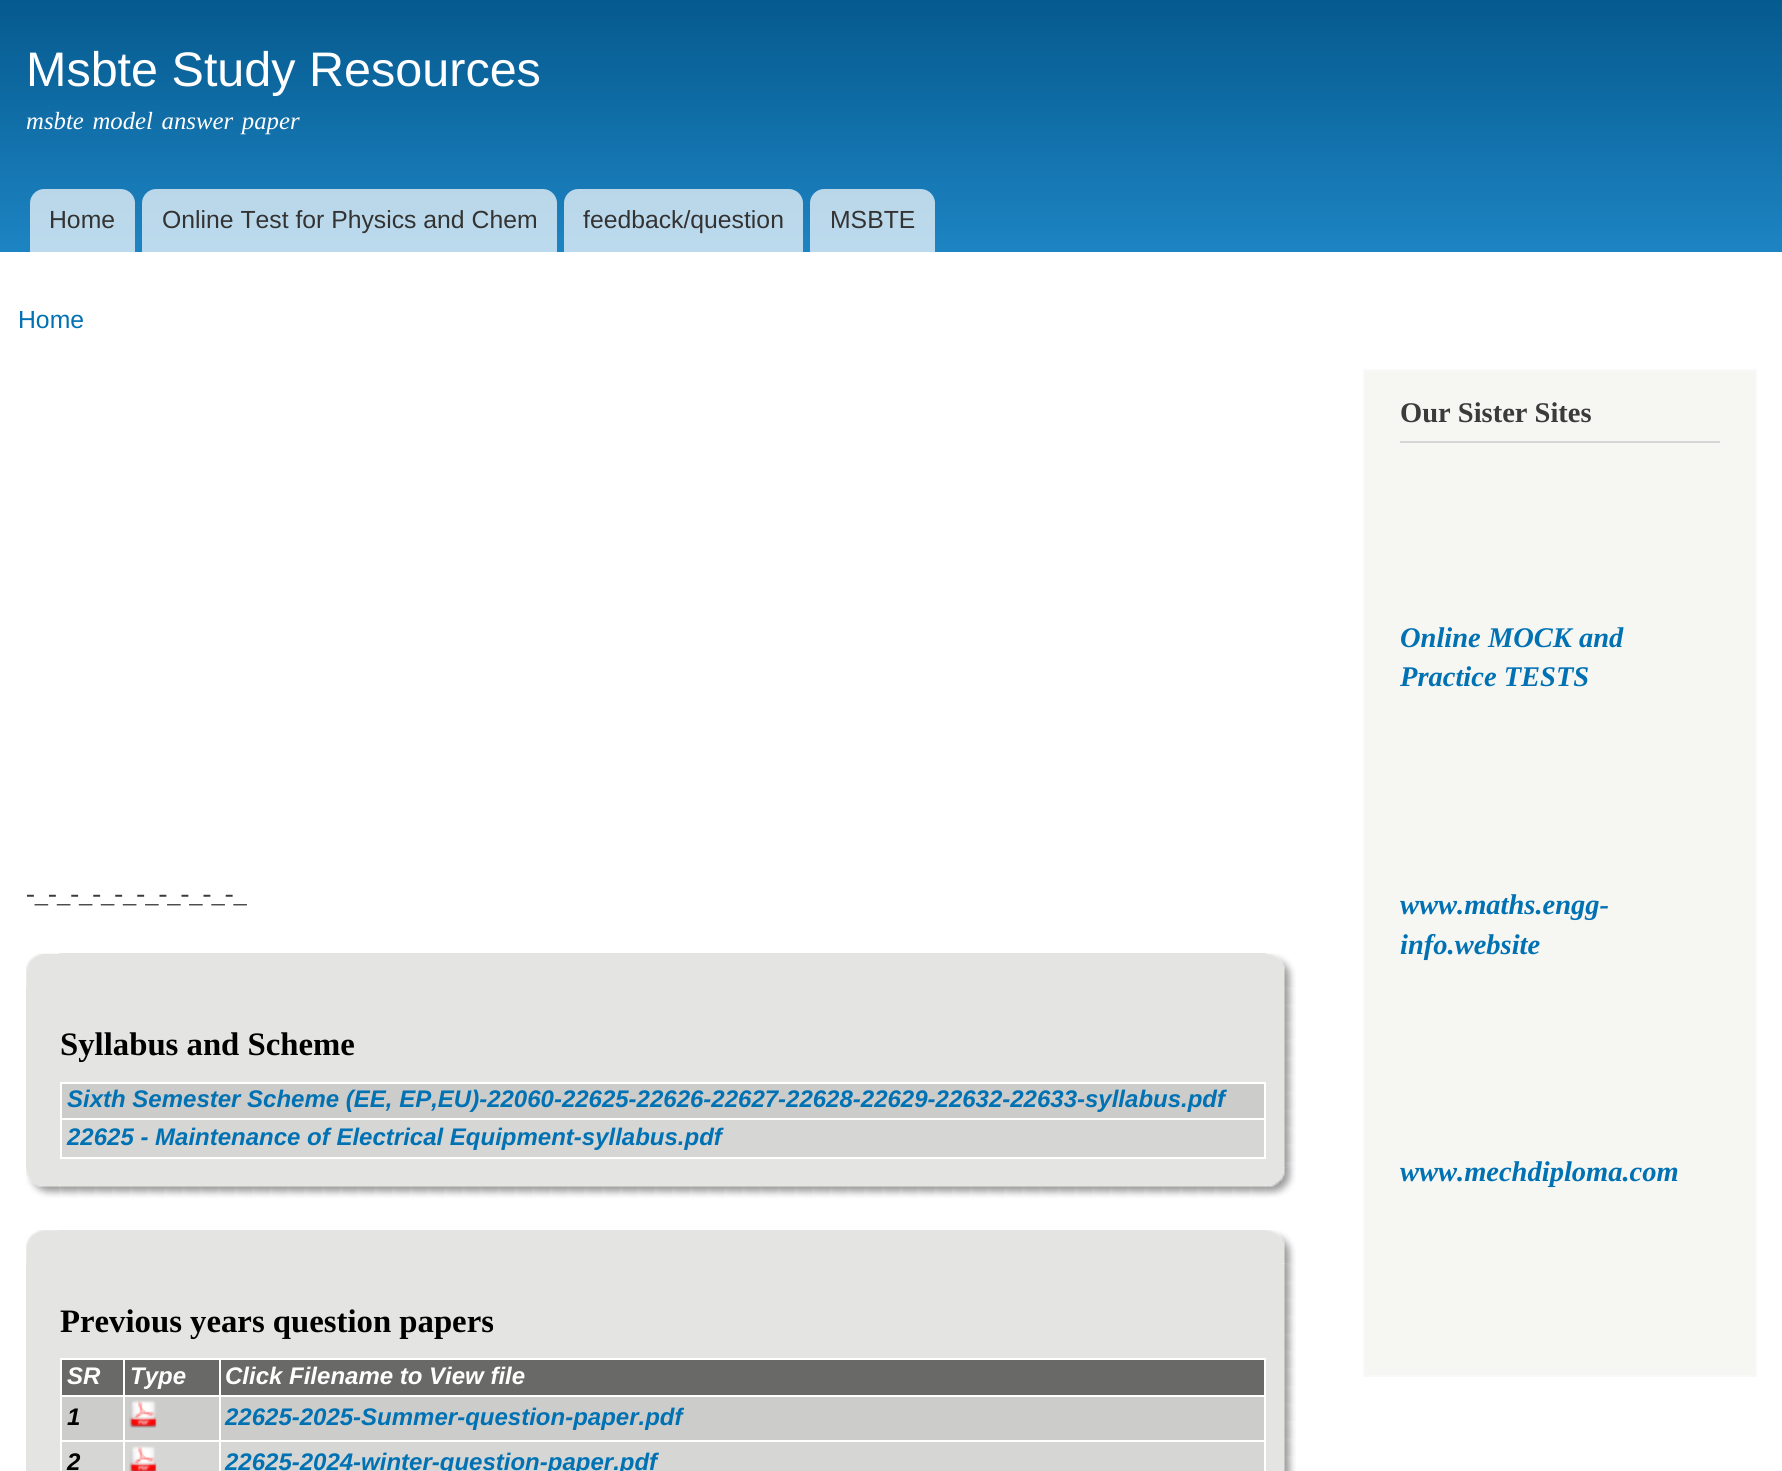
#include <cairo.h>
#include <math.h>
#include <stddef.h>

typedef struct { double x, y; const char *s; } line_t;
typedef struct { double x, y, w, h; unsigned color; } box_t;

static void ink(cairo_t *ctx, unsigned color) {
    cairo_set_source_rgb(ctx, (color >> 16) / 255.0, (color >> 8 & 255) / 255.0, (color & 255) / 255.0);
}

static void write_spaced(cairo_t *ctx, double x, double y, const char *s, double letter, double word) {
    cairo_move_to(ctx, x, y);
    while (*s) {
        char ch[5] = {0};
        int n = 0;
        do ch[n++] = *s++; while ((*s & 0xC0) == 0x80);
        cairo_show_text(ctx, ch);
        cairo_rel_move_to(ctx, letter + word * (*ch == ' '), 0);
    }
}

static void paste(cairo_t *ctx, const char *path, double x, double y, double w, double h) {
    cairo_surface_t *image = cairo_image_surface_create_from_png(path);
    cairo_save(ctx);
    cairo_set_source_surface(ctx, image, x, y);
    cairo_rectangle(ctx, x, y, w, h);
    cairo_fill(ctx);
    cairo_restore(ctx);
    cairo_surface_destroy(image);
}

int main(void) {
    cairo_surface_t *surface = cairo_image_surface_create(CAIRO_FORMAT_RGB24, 1782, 1471);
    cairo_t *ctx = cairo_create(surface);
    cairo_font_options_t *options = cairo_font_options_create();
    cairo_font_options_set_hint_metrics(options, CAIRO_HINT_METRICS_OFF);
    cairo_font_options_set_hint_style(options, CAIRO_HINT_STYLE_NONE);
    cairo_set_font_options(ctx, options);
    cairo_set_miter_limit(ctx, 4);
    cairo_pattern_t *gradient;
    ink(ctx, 0xFFFFFF);
    cairo_paint(ctx);
    gradient = cairo_pattern_create_linear(892, 0, 892, 252);
    cairo_pattern_add_color_stop_rgba(gradient, 0, 0.02, 0.353, 0.557, 1);
    cairo_pattern_add_color_stop_rgba(gradient, 1, 0.114, 0.518, 0.765, 1);
    cairo_set_source(ctx, gradient);
    cairo_pattern_destroy(gradient);
    cairo_rectangle(ctx, 0, 0, 1782, 252);
    cairo_fill(ctx);
    cairo_select_font_face(ctx, "Liberation Sans", CAIRO_FONT_SLANT_NORMAL, CAIRO_FONT_WEIGHT_NORMAL);
    cairo_set_font_size(ctx, 48.5);
    ink(ctx, 0xFFFEFF);
    cairo_move_to(ctx, 26, 86);
    cairo_show_text(ctx, "Msbte Study Resources");
    cairo_select_font_face(ctx, "Liberation Serif", CAIRO_FONT_SLANT_ITALIC, CAIRO_FONT_WEIGHT_NORMAL);
    cairo_set_font_size(ctx, 24.75);
    write_spaced(ctx, 26, 129, "msbte model answer paper", 0, 2.5);
    cairo_set_source_rgba(ctx, 1, 1, 1, 0.7);
    cairo_new_path(ctx);
    cairo_move_to(ctx, 44, 189);
    cairo_line_to(ctx, 121, 189);
    cairo_curve_to(ctx, 128.5, 189, 135, 195.5, 135, 203);
    cairo_line_to(ctx, 135, 252);
    cairo_line_to(ctx, 30, 252);
    cairo_line_to(ctx, 30, 203);
    cairo_curve_to(ctx, 30, 195.5, 36.5, 189, 44, 189);
    cairo_close_path(ctx);
    cairo_fill(ctx);
    cairo_select_font_face(ctx, "Liberation Sans", CAIRO_FONT_SLANT_NORMAL, CAIRO_FONT_WEIGHT_NORMAL);
    ink(ctx, 0x333333);
    cairo_move_to(ctx, 49, 228);
    cairo_show_text(ctx, "Home");
    cairo_set_source_rgba(ctx, 1, 1, 1, 0.7);
    cairo_new_path(ctx);
    cairo_move_to(ctx, 156, 189);
    cairo_line_to(ctx, 543, 189);
    cairo_curve_to(ctx, 550.5, 189, 557, 195.5, 557, 203);
    cairo_line_to(ctx, 557, 252);
    cairo_line_to(ctx, 142, 252);
    cairo_line_to(ctx, 142, 203);
    cairo_curve_to(ctx, 142, 195.5, 148.5, 189, 156, 189);
    cairo_close_path(ctx);
    cairo_fill(ctx);
    ink(ctx, 0x333333);
    cairo_move_to(ctx, 162, 228);
    cairo_show_text(ctx, "Online Test for Physics and Chem");
    cairo_set_source_rgba(ctx, 1, 1, 1, 0.7);
    cairo_new_path(ctx);
    cairo_move_to(ctx, 578, 189);
    cairo_line_to(ctx, 789, 189);
    cairo_curve_to(ctx, 796.5, 189, 803, 195.5, 803, 203);
    cairo_line_to(ctx, 803, 252);
    cairo_line_to(ctx, 564, 252);
    cairo_line_to(ctx, 564, 203);
    cairo_curve_to(ctx, 564, 195.5, 570.5, 189, 578, 189);
    cairo_close_path(ctx);
    cairo_fill(ctx);
    ink(ctx, 0x333333);
    cairo_move_to(ctx, 583, 228);
    cairo_show_text(ctx, "feedback/question");
    cairo_set_source_rgba(ctx, 1, 1, 1, 0.7);
    cairo_new_path(ctx);
    cairo_move_to(ctx, 824, 189);
    cairo_line_to(ctx, 921, 189);
    cairo_curve_to(ctx, 928.5, 189, 935, 195.5, 935, 203);
    cairo_line_to(ctx, 935, 252);
    cairo_line_to(ctx, 810, 252);
    cairo_line_to(ctx, 810, 203);
    cairo_curve_to(ctx, 810, 195.5, 816.5, 189, 824, 189);
    cairo_close_path(ctx);
    cairo_fill(ctx);
    ink(ctx, 0x333333);
    cairo_move_to(ctx, 830, 228);
    cairo_show_text(ctx, "MSBTE");
    ink(ctx, 0x0071B3);
    cairo_move_to(ctx, 18, 328);
    cairo_show_text(ctx, "Home");
    cairo_select_font_face(ctx, "Liberation Serif", CAIRO_FONT_SLANT_NORMAL, CAIRO_FONT_WEIGHT_NORMAL);
    cairo_set_font_size(ctx, 26.5);
    ink(ctx, 0x3B3B3B);
    cairo_move_to(ctx, 26, 902);
    cairo_show_text(ctx, "-_-_-_-_-_-_-_-_-_-_");
    ink(ctx, 0xE4E4E2);
    cairo_rectangle(ctx, 44, 971, 1237, 212);
    cairo_fill(ctx);
    cairo_rectangle(ctx, 59, 953, 1207, 18);
    cairo_fill(ctx);
    paste(ctx, "media/1.png", 26, 953, 33, 34);
    paste(ctx, "media/2.png", 1266, 953, 30, 34);
    cairo_rectangle(ctx, 26, 987, 18, 181);
    cairo_fill(ctx);
    paste(ctx, "media/3.png", 1281, 987, 15, 181);
    cairo_select_font_face(ctx, "Liberation Serif", CAIRO_FONT_SLANT_NORMAL, CAIRO_FONT_WEIGHT_BOLD);
    cairo_set_font_size(ctx, 32.75);
    ink(ctx, 0x000000);
    cairo_move_to(ctx, 60, 1055);
    cairo_show_text(ctx, "Syllabus and Scheme");
    {
        static const box_t items[] = {
            {62, 1084, 1202, 34, 0xCCCCCA},
            {60, 1082, 1205, 2, 0xFFFFFF},
            {60, 1118, 1205, 2, 0xFFFFFF},
            {1264, 1118, 2, 41, 0xFFFFFF},
            {1264, 1082, 2, 38, 0xFFFFFF},
            {60, 1157, 1205, 2, 0xFFFFFF},
            {60, 1118, 2, 41, 0xFFFFFF},
            {60, 1082, 2, 38, 0xFFFFFF},
        };
        for (size_t i = 0; i < sizeof items / sizeof *items; i++) {
            ink(ctx, items[i].color);
            cairo_rectangle(ctx, items[i].x, items[i].y, items[i].w, items[i].h);
            cairo_fill(ctx);
        }
    }
    cairo_select_font_face(ctx, "Liberation Sans", CAIRO_FONT_SLANT_ITALIC, CAIRO_FONT_WEIGHT_BOLD);
    cairo_set_font_size(ctx, 24);
    ink(ctx, 0x0071B3);
    cairo_move_to(ctx, 67, 1107);
    cairo_show_text(ctx, "Sixth Semester Scheme (EE, EP,EU)-22060-22625-22626-22627-22628-22629-22632-22633-syllabus.pdf");
    ink(ctx, 0xD6D6D4);
    cairo_rectangle(ctx, 62, 1120, 1202, 37);
    cairo_fill(ctx);
    ink(ctx, 0x0071B3);
    cairo_move_to(ctx, 67, 1145);
    cairo_show_text(ctx, "22625 - Maintenance of Electrical Equipment-syllabus.pdf");
    paste(ctx, "media/4.png", 59, 1183, 1207, 15);
    paste(ctx, "media/5.png", 26, 1168, 34, 30);
    paste(ctx, "media/6.png", 1265, 1167, 31, 31);
    ink(ctx, 0xE4E4E2);
    cairo_rectangle(ctx, 43, 1247, 1238, 224);
    cairo_fill(ctx);
    cairo_rectangle(ctx, 59, 1230, 1207, 17);
    cairo_fill(ctx);
    paste(ctx, "media/7.png", 26, 1230, 33, 34);
    paste(ctx, "media/8.png", 1266, 1230, 30, 34);
    cairo_rectangle(ctx, 26, 1263, 17, 208);
    cairo_fill(ctx);
    paste(ctx, "media/9.png", 1281, 1263, 15, 208);
    cairo_select_font_face(ctx, "Liberation Serif", CAIRO_FONT_SLANT_NORMAL, CAIRO_FONT_WEIGHT_BOLD);
    cairo_set_font_size(ctx, 32.75);
    ink(ctx, 0x000000);
    cairo_move_to(ctx, 60, 1332);
    cairo_show_text(ctx, "Previous years question papers");
    {
        static const box_t items[] = {
            {62, 1360, 61, 35, 0x696968},
            {219, 1358, 1046, 2, 0xFFFFFF},
            {219, 1395, 1046, 2, 0xFFFFFF},
            {62, 1397, 1202, 43, 0xCCCCCA},
            {219, 1440, 1046, 2, 0xFFFFFF},
            {62, 1442, 1202, 29, 0xD6D6D4},
            {219, 1440, 2, 31, 0xFFFFFF},
            {123, 1440, 98, 2, 0xFFFFFF},
            {219, 1395, 2, 47, 0xFFFFFF},
            {123, 1395, 98, 2, 0xFFFFFF},
            {219, 1358, 2, 39, 0xFFFFFF},
            {123, 1358, 98, 2, 0xFFFFFF},
            {123, 1440, 2, 31, 0xFFFFFF},
            {60, 1440, 64, 2, 0xFFFFFF},
            {123, 1395, 2, 47, 0xFFFFFF},
            {60, 1395, 64, 2, 0xFFFFFF},
            {123, 1358, 2, 39, 0xFFFFFF},
            {60, 1358, 64, 2, 0xFFFFFF},
            {60, 1440, 2, 31, 0xFFFFFF},
            {60, 1395, 2, 47, 0xFFFFFF},
            {60, 1358, 2, 39, 0xFFFFFF},
        };
        for (size_t i = 0; i < sizeof items / sizeof *items; i++) {
            ink(ctx, items[i].color);
            cairo_rectangle(ctx, items[i].x, items[i].y, items[i].w, items[i].h);
            cairo_fill(ctx);
        }
    }
    cairo_select_font_face(ctx, "Liberation Sans", CAIRO_FONT_SLANT_ITALIC, CAIRO_FONT_WEIGHT_BOLD);
    cairo_set_font_size(ctx, 24);
    ink(ctx, 0xFFFEFF);
    cairo_move_to(ctx, 67, 1384);
    cairo_show_text(ctx, "SR");
    ink(ctx, 0x696968);
    cairo_rectangle(ctx, 125, 1360, 94, 35);
    cairo_fill(ctx);
    ink(ctx, 0xFFFEFF);
    cairo_move_to(ctx, 130, 1384);
    cairo_show_text(ctx, "Type");
    {
        static const box_t items[] = {
            {221, 1360, 1043, 35, 0x696968},
            {1264, 1440, 2, 31, 0xFFFFFF},
            {1264, 1395, 2, 47, 0xFFFFFF},
            {1264, 1358, 2, 39, 0xFFFFFF},
        };
        for (size_t i = 0; i < sizeof items / sizeof *items; i++) {
            ink(ctx, items[i].color);
            cairo_rectangle(ctx, items[i].x, items[i].y, items[i].w, items[i].h);
            cairo_fill(ctx);
        }
    }
    ink(ctx, 0xFFFEFF);
    cairo_move_to(ctx, 225, 1384);
    cairo_show_text(ctx, "Click Filename to View file");
    ink(ctx, 0x000000);
    cairo_move_to(ctx, 67, 1425);
    cairo_show_text(ctx, "1");
    paste(ctx, "media/10.png", 129, 1400, 28, 28);
    ink(ctx, 0x0071B3);
    cairo_move_to(ctx, 225, 1425);
    cairo_show_text(ctx, "22625-2025-Summer-question-paper.pdf");
    ink(ctx, 0x000000);
    cairo_move_to(ctx, 67, 1470);
    cairo_show_text(ctx, "2");
    paste(ctx, "media/11.png", 129, 1446, 28, 25);
    ink(ctx, 0x0071B3);
    cairo_move_to(ctx, 225, 1470);
    cairo_show_text(ctx, "22625-2024-winter-question-paper.pdf");
    ink(ctx, 0xF6F6F2);
    cairo_rectangle(ctx, 1364, 370, 392, 1006);
    cairo_fill_preserve(ctx);
    ink(ctx, 0xF9F9F9);
    cairo_stroke(ctx);
    ink(ctx, 0xD6D6D6);
    cairo_rectangle(ctx, 1400, 441, 320, 2);
    cairo_fill(ctx);
    cairo_select_font_face(ctx, "Liberation Serif", CAIRO_FONT_SLANT_NORMAL, CAIRO_FONT_WEIGHT_BOLD);
    cairo_set_font_size(ctx, 28.5);
    ink(ctx, 0x3B3B3B);
    cairo_move_to(ctx, 1400, 422);
    cairo_show_text(ctx, "Our Sister Sites");
    cairo_select_font_face(ctx, "Liberation Serif", CAIRO_FONT_SLANT_ITALIC, CAIRO_FONT_WEIGHT_BOLD);
    ink(ctx, 0x0071B3);
    {
        static const line_t items[] = {
            {1400, 647, "Online MOCK and"},
            {1400, 686, "Practice TESTS"},
            {1400, 914, "www.maths.engg-"},
            {1400, 954, "info.website"},
            {1400, 1181, "www.mechdiploma.com"},
        };
        for (size_t i = 0; i < sizeof items / sizeof *items; i++) {
            cairo_move_to(ctx, items[i].x, items[i].y);
            cairo_show_text(ctx, items[i].s);
        }
    }
    cairo_surface_write_to_png(surface, "image.png");
    cairo_font_options_destroy(options);
    cairo_destroy(ctx);
    cairo_surface_destroy(surface);
    return 0;
}
